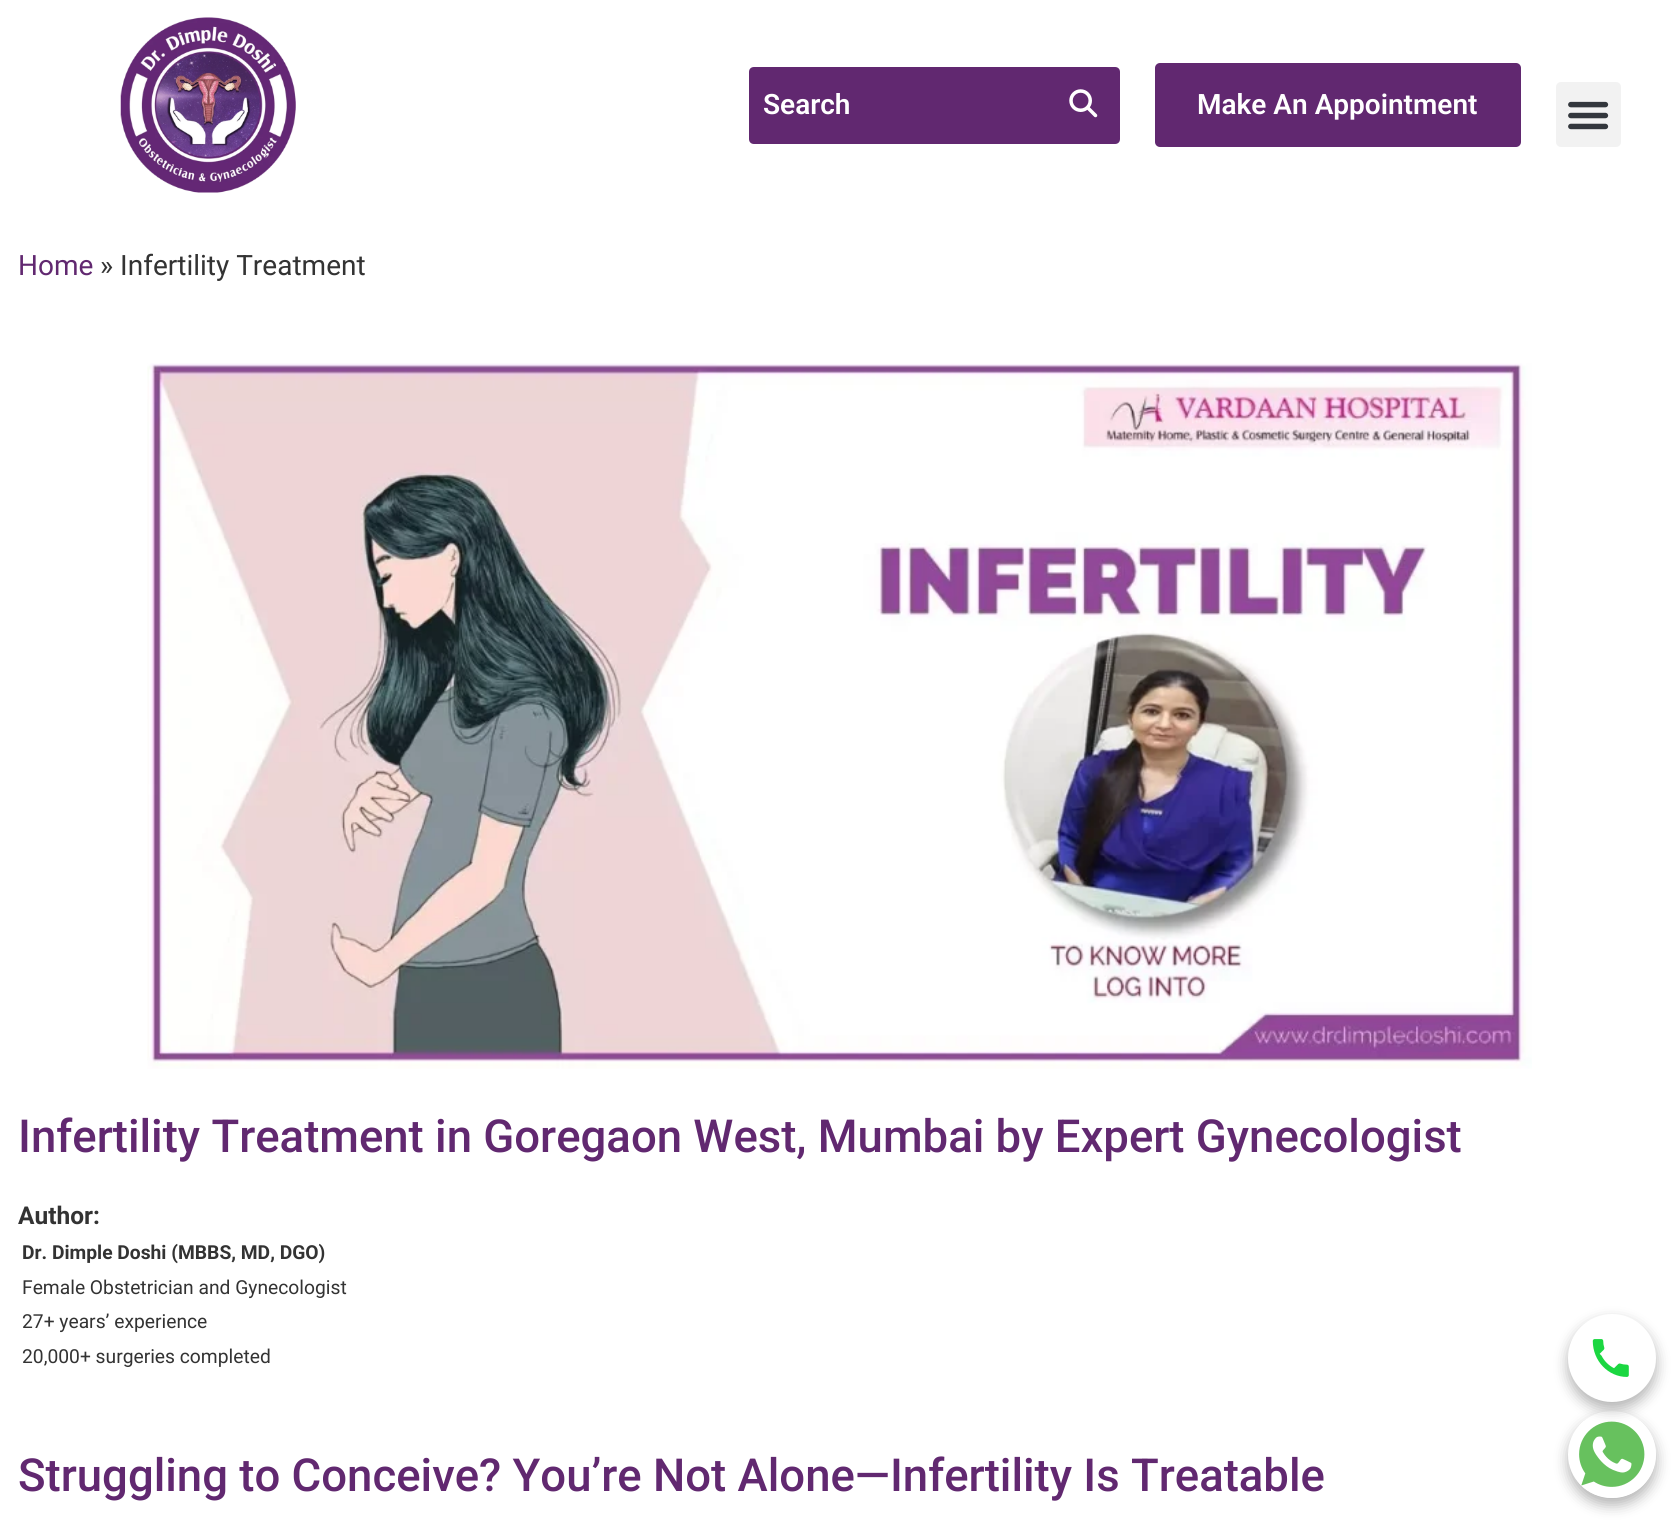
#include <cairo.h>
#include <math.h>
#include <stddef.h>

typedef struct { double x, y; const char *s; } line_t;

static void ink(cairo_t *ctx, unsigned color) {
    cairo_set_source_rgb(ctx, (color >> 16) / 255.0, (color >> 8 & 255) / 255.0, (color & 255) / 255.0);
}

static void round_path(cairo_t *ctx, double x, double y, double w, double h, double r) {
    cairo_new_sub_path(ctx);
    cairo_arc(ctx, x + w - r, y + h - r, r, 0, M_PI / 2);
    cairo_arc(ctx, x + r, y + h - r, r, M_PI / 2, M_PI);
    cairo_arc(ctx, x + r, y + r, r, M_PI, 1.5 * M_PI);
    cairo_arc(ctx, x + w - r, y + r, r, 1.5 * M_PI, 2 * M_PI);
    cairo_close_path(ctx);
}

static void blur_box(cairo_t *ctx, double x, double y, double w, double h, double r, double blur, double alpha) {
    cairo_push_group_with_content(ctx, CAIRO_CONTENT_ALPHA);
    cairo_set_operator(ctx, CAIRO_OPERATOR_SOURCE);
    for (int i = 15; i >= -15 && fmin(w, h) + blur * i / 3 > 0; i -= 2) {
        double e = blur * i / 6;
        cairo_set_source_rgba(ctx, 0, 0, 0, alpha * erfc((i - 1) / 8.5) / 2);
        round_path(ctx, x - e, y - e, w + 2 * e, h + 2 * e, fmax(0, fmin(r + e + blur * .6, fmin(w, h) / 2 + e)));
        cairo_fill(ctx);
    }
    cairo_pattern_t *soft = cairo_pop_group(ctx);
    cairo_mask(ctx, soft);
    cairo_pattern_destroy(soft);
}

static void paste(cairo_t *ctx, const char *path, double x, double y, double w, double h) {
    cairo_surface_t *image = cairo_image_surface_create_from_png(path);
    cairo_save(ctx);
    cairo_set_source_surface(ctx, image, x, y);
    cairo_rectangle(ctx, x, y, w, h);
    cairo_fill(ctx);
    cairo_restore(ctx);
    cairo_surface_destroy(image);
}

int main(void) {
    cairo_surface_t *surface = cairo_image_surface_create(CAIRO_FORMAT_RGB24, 1673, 1532);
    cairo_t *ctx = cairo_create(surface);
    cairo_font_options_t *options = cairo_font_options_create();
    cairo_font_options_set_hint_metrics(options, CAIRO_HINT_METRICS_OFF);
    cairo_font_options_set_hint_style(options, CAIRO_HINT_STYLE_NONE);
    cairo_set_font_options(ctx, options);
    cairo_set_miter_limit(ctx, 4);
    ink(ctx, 0xFFFFFF);
    cairo_paint(ctx);
    paste(ctx, "media/1.png", 120, 17, 176, 176);
    ink(ctx, 0x612870);
    cairo_new_path(ctx);
    cairo_move_to(ctx, 754, 67);
    cairo_line_to(ctx, 1047, 67);
    cairo_line_to(ctx, 1047, 144);
    cairo_line_to(ctx, 754, 144);
    cairo_curve_to(ctx, 751, 144, 749, 142, 749, 139);
    cairo_line_to(ctx, 749, 72);
    cairo_curve_to(ctx, 749, 69, 751, 67, 754, 67);
    cairo_close_path(ctx);
    cairo_fill(ctx);
    cairo_select_font_face(ctx, "Roboto SemiBold", CAIRO_FONT_SLANT_NORMAL, CAIRO_FONT_WEIGHT_NORMAL);
    cairo_set_font_size(ctx, 28);
    ink(ctx, 0xFFFFFF);
    cairo_move_to(ctx, 763, 114);
    cairo_show_text(ctx, "Search");
    ink(ctx, 0x612870);
    cairo_new_path(ctx);
    cairo_move_to(ctx, 1047, 67);
    cairo_line_to(ctx, 1115, 67);
    cairo_curve_to(ctx, 1118, 67, 1120, 69, 1120, 72);
    cairo_line_to(ctx, 1120, 139);
    cairo_curve_to(ctx, 1120, 142, 1118, 144, 1115, 144);
    cairo_line_to(ctx, 1047, 144);
    cairo_close_path(ctx);
    cairo_fill(ctx);
    paste(ctx, "media/2.png", 1069, 89, 29, 29);
    round_path(ctx, 1155, 63, 366, 84, 5);
    cairo_fill(ctx);
    ink(ctx, 0xFFFFFF);
    cairo_move_to(ctx, 1197, 114);
    cairo_show_text(ctx, "Make An Appointment");
    ink(ctx, 0xF2F2F2);
    round_path(ctx, 1556, 82, 65, 65, 5);
    cairo_fill(ctx);
    paste(ctx, "media/3.png", 1568, 101, 41, 29);
    cairo_select_font_face(ctx, "Roboto", CAIRO_FONT_SLANT_NORMAL, CAIRO_FONT_WEIGHT_NORMAL);
    ink(ctx, 0x612870);
    cairo_move_to(ctx, 18, 275);
    cairo_show_text(ctx, "Home");
    ink(ctx, 0x333333);
    cairo_move_to(ctx, 100, 275);
    cairo_show_text(ctx, "» Infertility Treatment");
    paste(ctx, "media/4.png", 147, 363, 1385, 706);
    cairo_select_font_face(ctx, "Roboto Medium", CAIRO_FONT_SLANT_NORMAL, CAIRO_FONT_WEIGHT_NORMAL);
    cairo_set_font_size(ctx, 45.5);
    ink(ctx, 0x612870);
    cairo_move_to(ctx, 18, 1152);
    cairo_show_text(ctx, "Infertility Treatment in Goregaon West, Mumbai by Expert Gynecologist");
    cairo_select_font_face(ctx, "Roboto", CAIRO_FONT_SLANT_NORMAL, CAIRO_FONT_WEIGHT_BOLD);
    cairo_set_font_size(ctx, 24.5);
    ink(ctx, 0x333333);
    cairo_move_to(ctx, 18, 1224);
    cairo_show_text(ctx, "Author:");
    cairo_set_font_size(ctx, 19.25);
    cairo_move_to(ctx, 22, 1259);
    cairo_show_text(ctx, "Dr. Dimple Doshi (MBBS, MD, DGO)");
    cairo_select_font_face(ctx, "Roboto", CAIRO_FONT_SLANT_NORMAL, CAIRO_FONT_WEIGHT_NORMAL);
    {
        static const line_t items[] = {
            {22, 1294, "Female Obstetrician and Gynecologist"},
            {22, 1328, "27+ years’ experience"},
            {22, 1363, "20,000+ surgeries completed"},
        };
        for (size_t i = 0; i < sizeof items / sizeof *items; i++) {
            cairo_move_to(ctx, items[i].x, items[i].y);
            cairo_show_text(ctx, items[i].s);
        }
    }
    cairo_select_font_face(ctx, "Roboto Medium", CAIRO_FONT_SLANT_NORMAL, CAIRO_FONT_WEIGHT_NORMAL);
    cairo_set_font_size(ctx, 45.5);
    ink(ctx, 0x612870);
    cairo_move_to(ctx, 18, 1491);
    cairo_show_text(ctx, "Struggling to Conceive? You’re Not Alone—Infertility Is Treatable");
    ink(ctx, 0x000000);
    blur_box(ctx, 1568, 1418, 88, 87, 43.5, 7, 0.3);
    ink(ctx, 0xFFFFFF);
    round_path(ctx, 1568, 1411, 88, 87, 43.5);
    cairo_fill(ctx);
    paste(ctx, "media/6.png", 1579, 1421, 77, 77);
    ink(ctx, 0x000000);
    blur_box(ctx, 1568, 1321, 88, 88, 44, 7, 0.3);
    ink(ctx, 0xFFFFFF);
    cairo_arc(ctx, 1612, 1358, 44, 0, 2 * M_PI);
    cairo_fill(ctx);
    paste(ctx, "media/5.png", 1592, 1339, 37, 38);
    cairo_surface_write_to_png(surface, "image.png");
    cairo_font_options_destroy(options);
    cairo_destroy(ctx);
    cairo_surface_destroy(surface);
    return 0;
}
